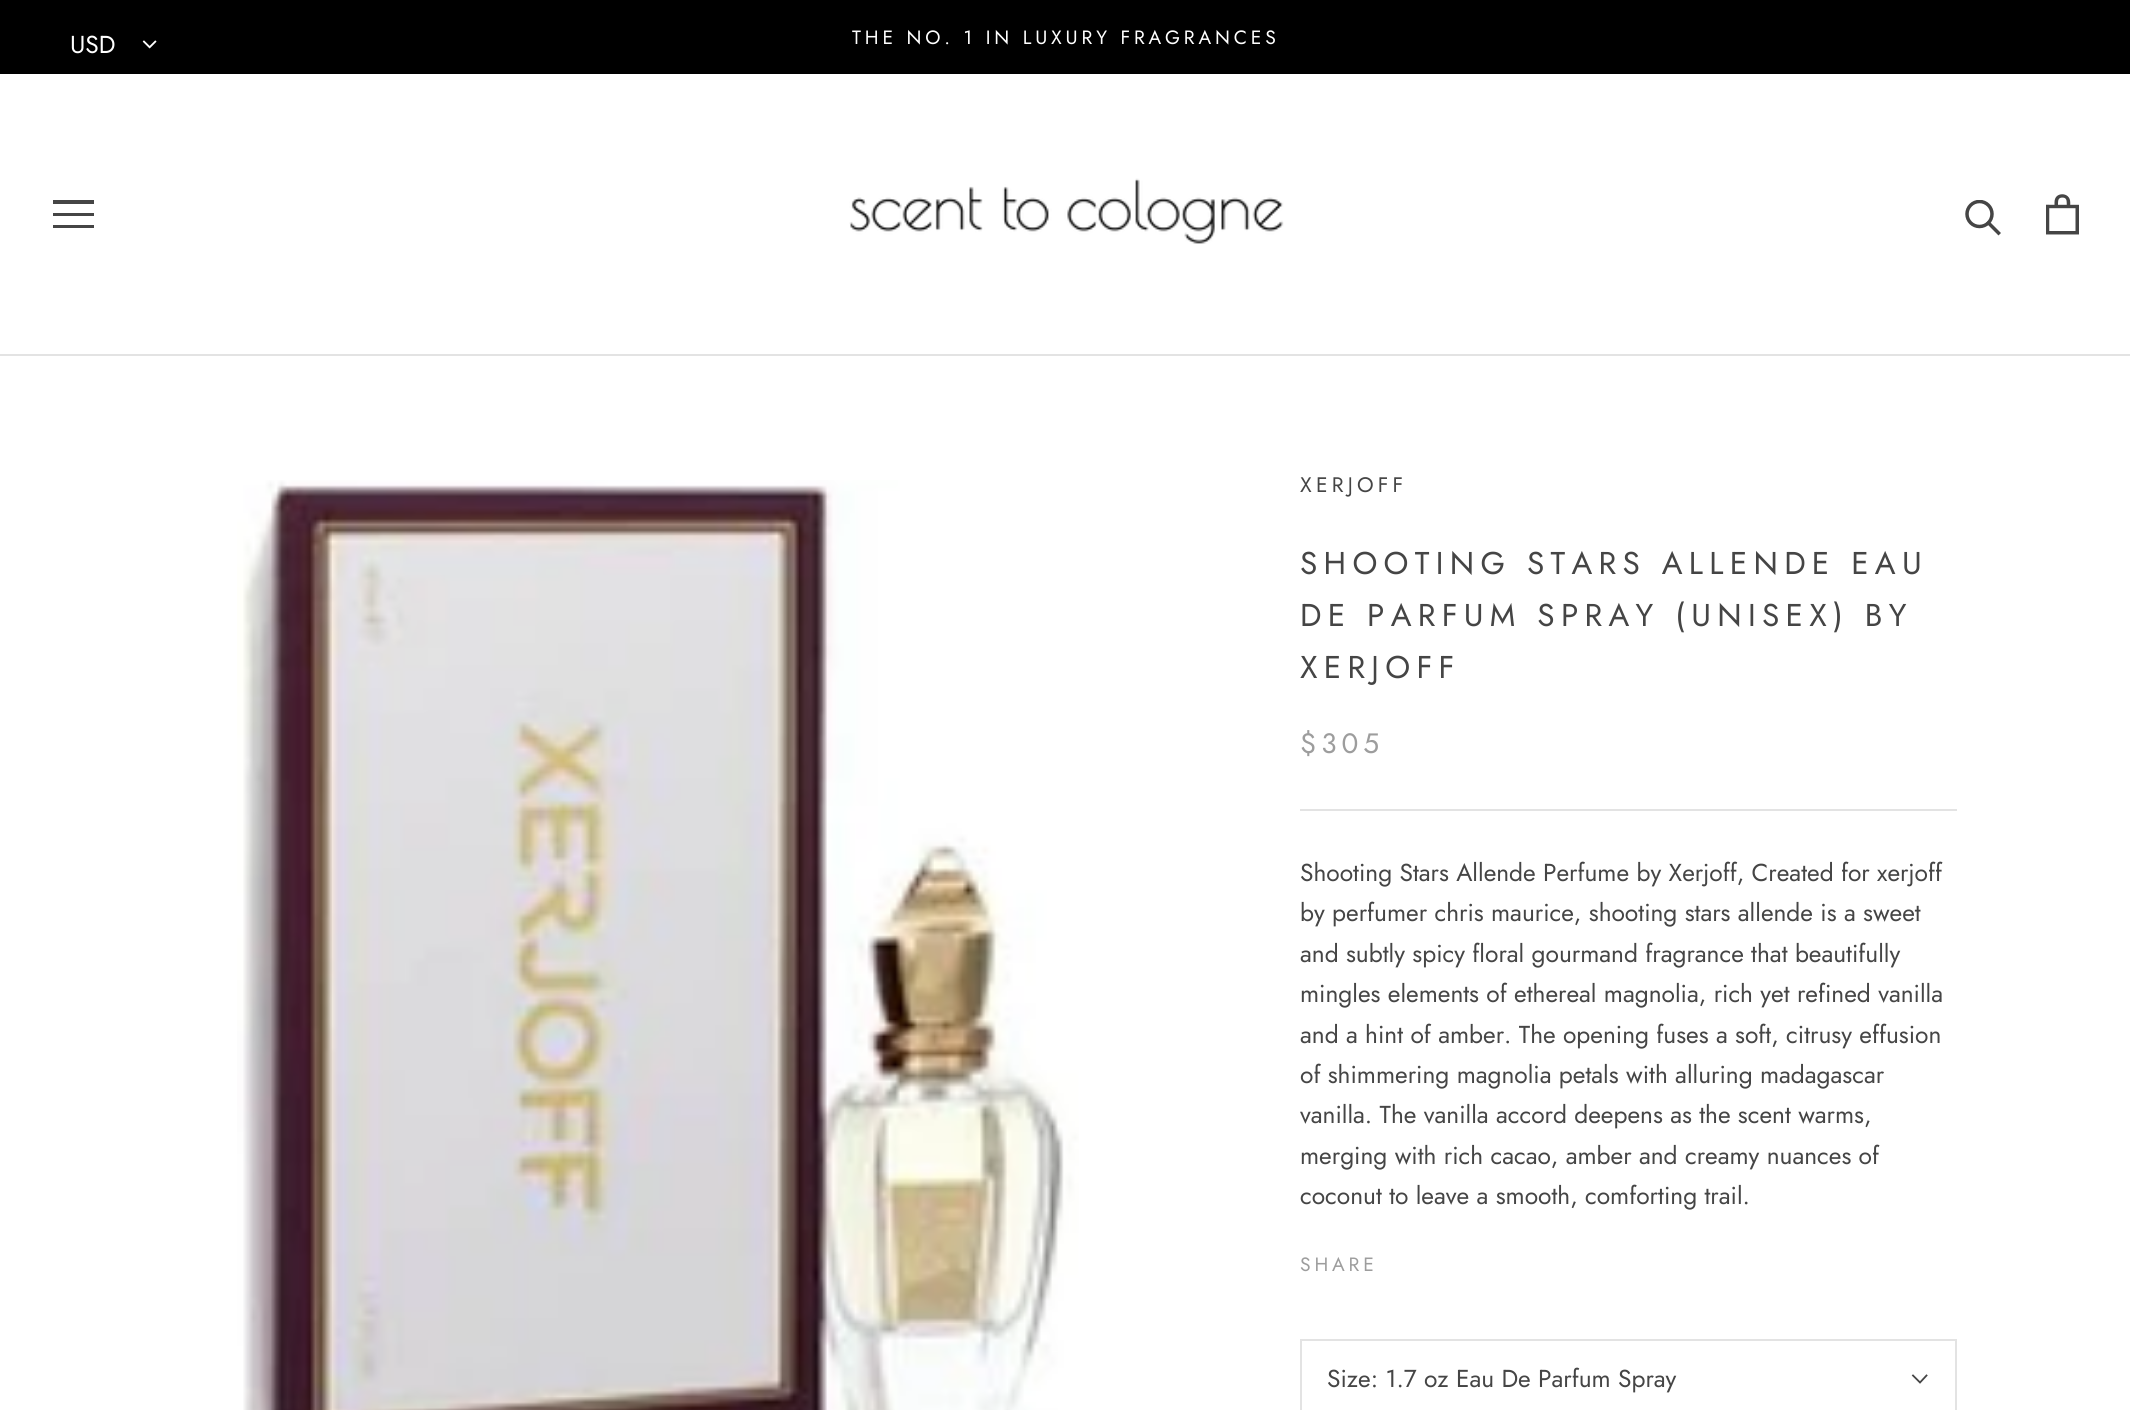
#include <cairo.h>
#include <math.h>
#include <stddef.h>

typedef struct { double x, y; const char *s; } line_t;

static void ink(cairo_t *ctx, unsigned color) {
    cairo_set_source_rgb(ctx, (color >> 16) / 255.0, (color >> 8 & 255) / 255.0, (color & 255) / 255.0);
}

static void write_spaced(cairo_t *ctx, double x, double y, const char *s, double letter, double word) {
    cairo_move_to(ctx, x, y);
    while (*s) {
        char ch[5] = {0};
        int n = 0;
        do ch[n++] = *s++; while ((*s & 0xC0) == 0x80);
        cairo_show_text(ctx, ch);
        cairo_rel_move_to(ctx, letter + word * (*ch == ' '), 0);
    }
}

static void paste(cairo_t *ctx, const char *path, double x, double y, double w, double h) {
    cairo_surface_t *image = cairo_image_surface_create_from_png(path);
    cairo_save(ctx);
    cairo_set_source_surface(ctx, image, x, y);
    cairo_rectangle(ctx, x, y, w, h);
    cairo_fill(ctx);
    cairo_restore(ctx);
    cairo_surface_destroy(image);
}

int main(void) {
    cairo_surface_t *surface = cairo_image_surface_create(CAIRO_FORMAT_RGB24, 2130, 1410);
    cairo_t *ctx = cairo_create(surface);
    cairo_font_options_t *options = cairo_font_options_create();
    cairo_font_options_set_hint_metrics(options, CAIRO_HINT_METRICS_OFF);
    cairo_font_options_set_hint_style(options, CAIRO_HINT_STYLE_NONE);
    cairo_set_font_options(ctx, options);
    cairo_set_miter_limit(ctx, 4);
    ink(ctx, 0xFFFFFF);
    cairo_paint(ctx);
    ink(ctx, 0x000000);
    cairo_rectangle(ctx, 0, 0, 2130, 74);
    cairo_fill(ctx);
    cairo_select_font_face(ctx, "Jost", CAIRO_FONT_SLANT_NORMAL, CAIRO_FONT_WEIGHT_NORMAL);
    cairo_set_font_size(ctx, 24.5);
    ink(ctx, 0xFFFFFF);
    cairo_move_to(ctx, 70, 53);
    cairo_show_text(ctx, "USD");
    paste(ctx, "media/1.png", 142, 40, 15, 9);
    cairo_set_font_size(ctx, 19.25);
    write_spaced(ctx, 852, 44, "THE NO. 1 IN LUXURY FRAGRANCES", 3.85, 0);
    ink(ctx, 0xE3E3E3);
    cairo_rectangle(ctx, 0, 354, 2130, 2);
    cairo_fill(ctx);
    cairo_save(ctx);
    cairo_rectangle(ctx, 53, 200, 42, 29);
    cairo_clip(ctx);
    ink(ctx, 0x454545);
    cairo_new_path(ctx);
    cairo_move_to(ctx, 52, 228);
    cairo_line_to(ctx, 52, 225);
    cairo_line_to(ctx, 94, 225);
    cairo_line_to(ctx, 94, 228);
    cairo_close_path(ctx);
    cairo_move_to(ctx, 52, 213);
    cairo_line_to(ctx, 94, 213);
    cairo_line_to(ctx, 94, 216);
    cairo_line_to(ctx, 52, 216);
    cairo_close_path(ctx);
    cairo_move_to(ctx, 52, 200);
    cairo_line_to(ctx, 94, 200);
    cairo_line_to(ctx, 94, 204);
    cairo_line_to(ctx, 52, 204);
    cairo_close_path(ctx);
    cairo_fill(ctx);
    cairo_restore(ctx);
    paste(ctx, "media/2.png", 849, 178, 435, 66);
    cairo_new_path(ctx);
    cairo_move_to(ctx, 1998.5, 233);
    cairo_line_to(ctx, 1988.5, 223);
    ink(ctx, 0x454545);
    cairo_set_line_width(ctx, 3.5);
    cairo_set_line_cap(ctx, CAIRO_LINE_CAP_SQUARE);
    cairo_stroke(ctx);
    cairo_save(ctx);
    cairo_rectangle(ctx, 1965, 200, 37, 36);
    cairo_clip(ctx);
    cairo_arc(ctx, 1979.5, 214, 12.5, 0, 2 * M_PI);
    cairo_set_line_cap(ctx, CAIRO_LINE_CAP_BUTT);
    cairo_stroke(ctx);
    cairo_restore(ctx);
    paste(ctx, "media/3.png", 2046, 194, 33, 41);
    paste(ctx, "media/4.png", 237, 480, 842, 930);
    cairo_set_font_size(ctx, 21);
    write_spaced(ctx, 1300, 492, "XERJOFF", 4.25, 0);
    cairo_set_font_size(ctx, 31.5);
    {
        static const line_t items[] = {
            {1300, 574, "SHOOTING STARS ALLENDE EAU"},
            {1300, 626, "DE PARFUM SPRAY (UNISEX) BY"},
            {1300, 678, "XERJOFF"},
        };
        for (size_t i = 0; i < sizeof items / sizeof *items; i++) {
            write_spaced(ctx, items[i].x, items[i].y, items[i].s, 6.3, 0);
        }
    }
    cairo_set_font_size(ctx, 28);
    ink(ctx, 0x9D9D9D);
    write_spaced(ctx, 1300, 753, "$305", 5, 0);
    ink(ctx, 0xE3E3E3);
    cairo_rectangle(ctx, 1300, 809, 657, 2);
    cairo_fill(ctx);
    cairo_set_font_size(ctx, 24.5);
    ink(ctx, 0x454545);
    {
        static const line_t items[] = {
            {1300, 881, "Shooting Stars Allende Perfume by Xerjoff, Created for xerjoff"},
            {1300, 921, "by perfumer chris maurice, shooting stars allende is a sweet"},
            {1300, 962, "and subtly spicy floral gourmand fragrance that beautifully"},
            {1300, 1002, "mingles elements of ethereal magnolia, rich yet refined vanilla"},
            {1300, 1043, "and a hint of amber. The opening fuses a soft, citrusy effusion"},
            {1300, 1083, "of shimmering magnolia petals with alluring madagascar"},
            {1300, 1123, "vanilla. The vanilla accord deepens as the scent warms,"},
            {1300, 1164, "merging with rich cacao, amber and creamy nuances of"},
            {1300, 1204, "coconut to leave a smooth, comforting trail."},
        };
        for (size_t i = 0; i < sizeof items / sizeof *items; i++) {
            cairo_move_to(ctx, items[i].x, items[i].y);
            cairo_show_text(ctx, items[i].s);
        }
    }
    cairo_set_font_size(ctx, 19.25);
    ink(ctx, 0x9D9D9D);
    write_spaced(ctx, 1300, 1271, "SHARE", 3.85, 0);
    cairo_rectangle(ctx, 1301, 1340, 655, 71);
    ink(ctx, 0xE3E3E3);
    cairo_set_line_width(ctx, 2);
    cairo_set_line_cap(ctx, CAIRO_LINE_CAP_BUTT);
    cairo_stroke(ctx);
    cairo_set_font_size(ctx, 24.5);
    ink(ctx, 0x454545);
    cairo_move_to(ctx, 1327, 1387);
    cairo_show_text(ctx, "Size: 1.7 oz Eau De Parfum Spray");
    cairo_new_path(ctx);
    cairo_move_to(ctx, 1926.5, 1375.5);
    cairo_line_to(ctx, 1920, 1382.5);
    cairo_line_to(ctx, 1913, 1375.5);
    cairo_set_line_width(ctx, 1.8);
    cairo_set_line_cap(ctx, CAIRO_LINE_CAP_SQUARE);
    cairo_stroke(ctx);
    cairo_surface_write_to_png(surface, "image.png");
    cairo_font_options_destroy(options);
    cairo_destroy(ctx);
    cairo_surface_destroy(surface);
    return 0;
}
